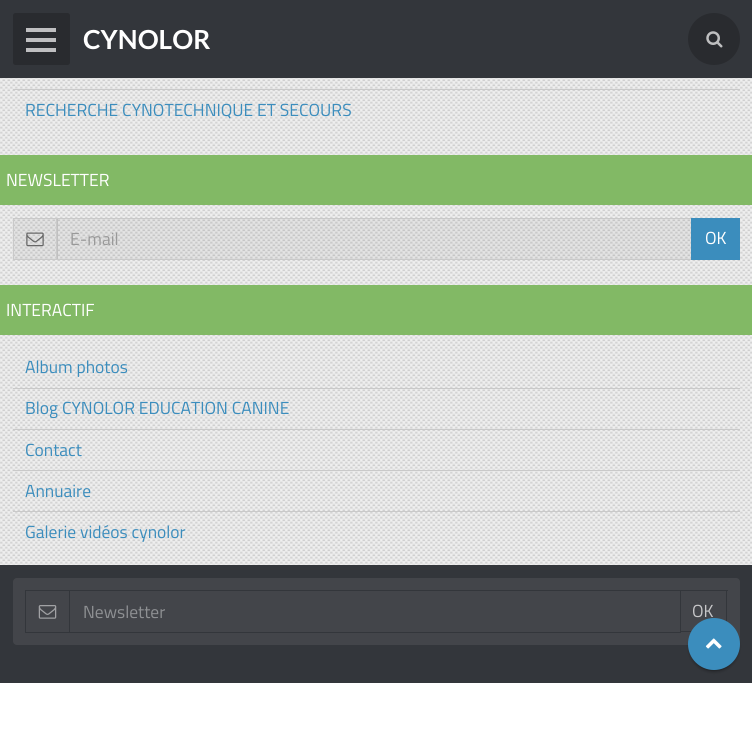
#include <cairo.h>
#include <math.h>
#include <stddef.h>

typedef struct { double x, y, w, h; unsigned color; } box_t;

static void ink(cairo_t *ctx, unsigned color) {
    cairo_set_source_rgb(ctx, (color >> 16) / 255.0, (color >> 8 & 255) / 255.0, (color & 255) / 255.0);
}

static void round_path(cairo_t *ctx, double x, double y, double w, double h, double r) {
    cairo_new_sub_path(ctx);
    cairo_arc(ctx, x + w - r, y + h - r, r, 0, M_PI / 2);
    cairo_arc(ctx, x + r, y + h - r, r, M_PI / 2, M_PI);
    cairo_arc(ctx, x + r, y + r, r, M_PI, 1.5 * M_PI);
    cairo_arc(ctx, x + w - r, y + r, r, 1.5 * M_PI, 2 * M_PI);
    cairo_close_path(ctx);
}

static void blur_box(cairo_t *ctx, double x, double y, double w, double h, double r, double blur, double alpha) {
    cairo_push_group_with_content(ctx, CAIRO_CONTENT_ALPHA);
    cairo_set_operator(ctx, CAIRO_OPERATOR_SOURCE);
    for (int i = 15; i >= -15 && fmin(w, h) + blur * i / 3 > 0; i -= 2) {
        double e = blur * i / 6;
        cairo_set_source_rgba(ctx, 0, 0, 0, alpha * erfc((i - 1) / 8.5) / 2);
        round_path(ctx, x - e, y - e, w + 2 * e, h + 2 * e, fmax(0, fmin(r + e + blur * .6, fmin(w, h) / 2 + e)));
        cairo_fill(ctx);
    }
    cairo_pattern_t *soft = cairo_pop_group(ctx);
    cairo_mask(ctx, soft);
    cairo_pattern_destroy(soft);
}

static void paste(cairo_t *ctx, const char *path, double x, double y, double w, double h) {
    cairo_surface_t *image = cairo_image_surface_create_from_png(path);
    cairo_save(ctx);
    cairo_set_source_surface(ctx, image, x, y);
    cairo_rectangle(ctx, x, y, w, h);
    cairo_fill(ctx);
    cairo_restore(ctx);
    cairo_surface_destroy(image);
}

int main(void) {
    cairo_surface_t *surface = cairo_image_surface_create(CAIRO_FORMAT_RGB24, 752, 734);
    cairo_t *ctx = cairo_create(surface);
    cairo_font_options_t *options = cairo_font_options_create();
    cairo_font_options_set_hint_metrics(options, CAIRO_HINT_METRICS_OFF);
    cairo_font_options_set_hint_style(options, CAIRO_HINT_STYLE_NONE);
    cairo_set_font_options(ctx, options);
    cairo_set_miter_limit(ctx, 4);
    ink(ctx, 0xFFFFFF);
    cairo_paint(ctx);
    ink(ctx, 0x33363B);
    cairo_rectangle(ctx, 0, 0, 752, 78);
    cairo_fill(ctx);
    ink(ctx, 0x292B2F);
    round_path(ctx, 13, 13, 57, 52, 2.5);
    cairo_fill(ctx);
    {
        static const box_t items[] = {
            {26, 38, 30, 4, 0xBFBFC1},
            {26, 28, 30, 4, 0xBFBFC1},
            {26, 48, 30, 4, 0xBFBFC1},
        };
        for (size_t i = 0; i < sizeof items / sizeof *items; i++) {
            ink(ctx, items[i].color);
            cairo_rectangle(ctx, items[i].x, items[i].y, items[i].w, items[i].h);
            cairo_fill(ctx);
        }
    }
    cairo_select_font_face(ctx, "Lato", CAIRO_FONT_SLANT_NORMAL, CAIRO_FONT_WEIGHT_BOLD);
    cairo_set_font_size(ctx, 26.25);
    ink(ctx, 0xFFFFFF);
    cairo_move_to(ctx, 83, 49);
    cairo_show_text(ctx, "CYNOLOR");
    ink(ctx, 0x292B2F);
    cairo_new_path(ctx);
    cairo_arc(ctx, 714, 39, 26, 0, 2 * M_PI);
    cairo_fill(ctx);
    paste(ctx, "media/1.png", 706, 31, 17, 17);
    ink(ctx, 0xF0F0F0);
    cairo_rectangle(ctx, 0, 78, 752, 487);
    cairo_fill(ctx);
    paste(ctx, "media/2.png", 0, 78, 752, 487);
    ink(ctx, 0xC9C9C9);
    cairo_rectangle(ctx, 13, 89, 727, 1);
    cairo_fill(ctx);
    cairo_select_font_face(ctx, "Titillium Web", CAIRO_FONT_SLANT_NORMAL, CAIRO_FONT_WEIGHT_NORMAL);
    cairo_set_font_size(ctx, 17.5);
    ink(ctx, 0x3B8DBD);
    cairo_move_to(ctx, 25, 116);
    cairo_show_text(ctx, "RECHERCHE CYNOTECHNIQUE ET SECOURS");
    ink(ctx, 0x82B965);
    cairo_rectangle(ctx, 0, 155, 752, 50);
    cairo_fill(ctx);
    ink(ctx, 0xFFFFFF);
    cairo_move_to(ctx, 6, 186);
    cairo_show_text(ctx, "NEWSLETTER");
    cairo_set_source_rgba(ctx, 0, 0, 0, 0.05);
    cairo_rectangle(ctx, 14, 219, 42, 40);
    cairo_fill(ctx);
    cairo_rectangle(ctx, 13.5, 218.5, 44, 41);
    ink(ctx, 0xC9C9C9);
    cairo_set_line_width(ctx, 1);
    cairo_stroke(ctx);
    paste(ctx, "media/3.png", 26, 232, 18, 15);
    cairo_set_source_rgba(ctx, 0, 0, 0, 0.05);
    cairo_rectangle(ctx, 57, 219, 634, 40);
    cairo_fill(ctx);
    cairo_rectangle(ctx, 56.5, 218.5, 636, 41);
    ink(ctx, 0xC9C9C9);
    cairo_stroke(ctx);
    ink(ctx, 0x999999);
    cairo_move_to(ctx, 70, 245);
    cairo_show_text(ctx, "E-mail");
    ink(ctx, 0x3B8DBD);
    cairo_rectangle(ctx, 691, 218, 49, 42);
    cairo_fill(ctx);
    ink(ctx, 0xFFFFFF);
    cairo_move_to(ctx, 705, 244);
    cairo_show_text(ctx, "OK");
    ink(ctx, 0x82B965);
    cairo_rectangle(ctx, 0, 285, 752, 50);
    cairo_fill(ctx);
    ink(ctx, 0xFFFFFF);
    cairo_move_to(ctx, 6, 316);
    cairo_show_text(ctx, "INTERACTIF");
    ink(ctx, 0xC9C9C9);
    cairo_rectangle(ctx, 13, 388, 727, 1);
    cairo_fill(ctx);
    ink(ctx, 0x3B8DBD);
    cairo_move_to(ctx, 25, 373);
    cairo_show_text(ctx, "Album photos");
    ink(ctx, 0xC9C9C9);
    cairo_rectangle(ctx, 13, 429, 727, 1);
    cairo_fill(ctx);
    ink(ctx, 0x3B8DBD);
    cairo_move_to(ctx, 25, 414);
    cairo_show_text(ctx, "Blog CYNOLOR EDUCATION CANINE");
    ink(ctx, 0xC9C9C9);
    cairo_rectangle(ctx, 13, 470, 727, 1);
    cairo_fill(ctx);
    ink(ctx, 0x3B8DBD);
    cairo_move_to(ctx, 25, 456);
    cairo_show_text(ctx, "Contact");
    ink(ctx, 0xC9C9C9);
    cairo_rectangle(ctx, 13, 511, 727, 1);
    cairo_fill(ctx);
    ink(ctx, 0x3B8DBD);
    cairo_move_to(ctx, 25, 497);
    cairo_show_text(ctx, "Annuaire");
    cairo_move_to(ctx, 25, 538);
    cairo_show_text(ctx, "Galerie vidéos cynolor");
    ink(ctx, 0x33363B);
    cairo_rectangle(ctx, 0, 565, 752, 118);
    cairo_fill(ctx);
    ink(ctx, 0x43454A);
    round_path(ctx, 13, 578, 727, 67, 4);
    cairo_fill(ctx);
    cairo_rectangle(ctx, 25.5, 590.5, 44, 42);
    ink(ctx, 0x33363B);
    cairo_stroke(ctx);
    paste(ctx, "media/4.png", 38, 605, 19, 14);
    cairo_rectangle(ctx, 69.5, 590.5, 611, 42);
    cairo_stroke(ctx);
    ink(ctx, 0x8E9093);
    cairo_move_to(ctx, 83, 618);
    cairo_show_text(ctx, "Newsletter");
    {
        static const box_t items[] = {
            {680, 590, 48, 1, 0x33363B},
            {726, 590, 1, 32, 0x33363B},
            {680, 631, 12, 1, 0x33363B},
        };
        for (size_t i = 0; i < sizeof items / sizeof *items; i++) {
            ink(ctx, items[i].color);
            cairo_rectangle(ctx, items[i].x, items[i].y, items[i].w, items[i].h);
            cairo_fill(ctx);
        }
    }
    ink(ctx, 0xC7C7C9);
    cairo_move_to(ctx, 692, 617);
    cairo_show_text(ctx, "OK");
    ink(ctx, 0x000000);
    blur_box(ctx, 690, 624, 48, 47, 23.5, 0.5, 0.2);
    blur_box(ctx, 688, 620, 52, 53, 26, 1, 0.14);
    ink(ctx, 0x3B8DBD);
    cairo_arc(ctx, 714, 644, 26, 0, 2 * M_PI);
    cairo_fill(ctx);
    paste(ctx, "media/5.png", 705, 638, 17, 11);
    cairo_surface_write_to_png(surface, "image.png");
    cairo_font_options_destroy(options);
    cairo_destroy(ctx);
    cairo_surface_destroy(surface);
    return 0;
}
